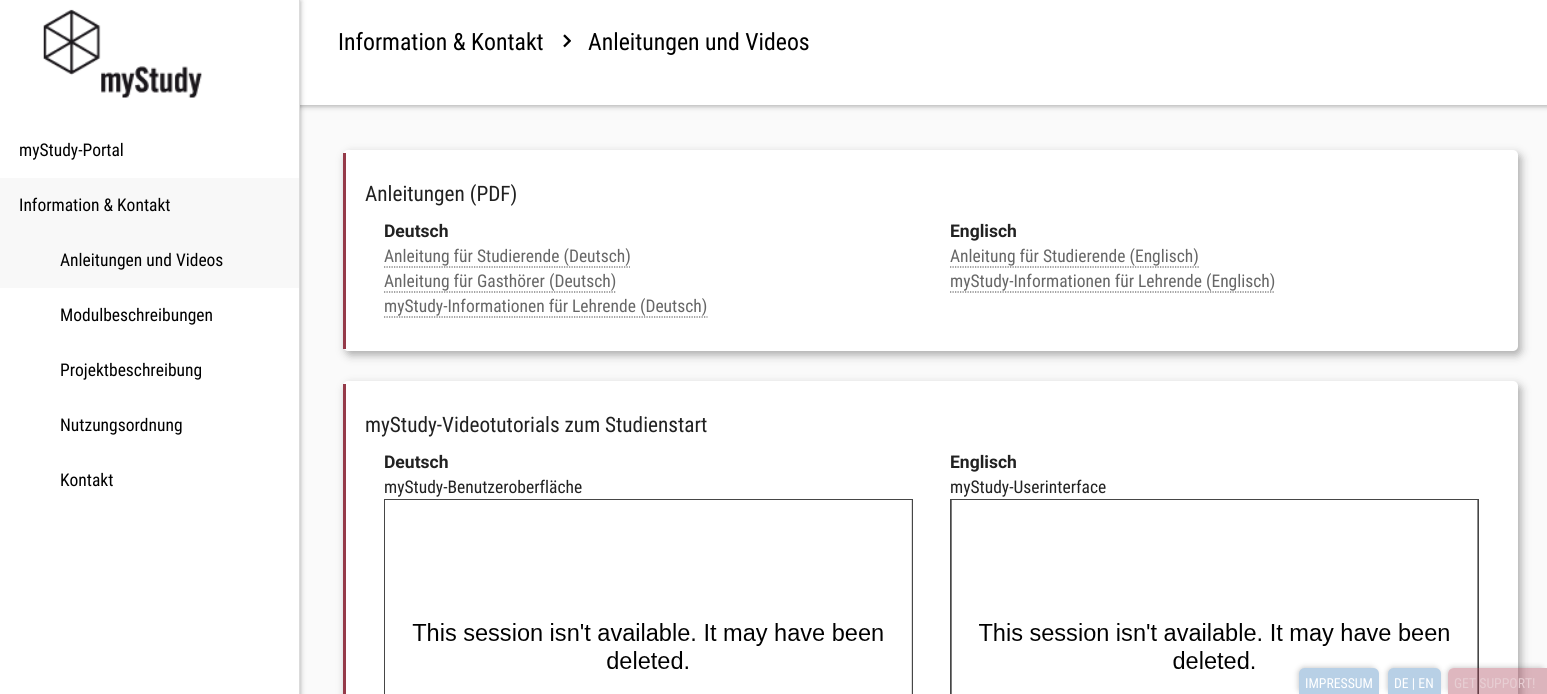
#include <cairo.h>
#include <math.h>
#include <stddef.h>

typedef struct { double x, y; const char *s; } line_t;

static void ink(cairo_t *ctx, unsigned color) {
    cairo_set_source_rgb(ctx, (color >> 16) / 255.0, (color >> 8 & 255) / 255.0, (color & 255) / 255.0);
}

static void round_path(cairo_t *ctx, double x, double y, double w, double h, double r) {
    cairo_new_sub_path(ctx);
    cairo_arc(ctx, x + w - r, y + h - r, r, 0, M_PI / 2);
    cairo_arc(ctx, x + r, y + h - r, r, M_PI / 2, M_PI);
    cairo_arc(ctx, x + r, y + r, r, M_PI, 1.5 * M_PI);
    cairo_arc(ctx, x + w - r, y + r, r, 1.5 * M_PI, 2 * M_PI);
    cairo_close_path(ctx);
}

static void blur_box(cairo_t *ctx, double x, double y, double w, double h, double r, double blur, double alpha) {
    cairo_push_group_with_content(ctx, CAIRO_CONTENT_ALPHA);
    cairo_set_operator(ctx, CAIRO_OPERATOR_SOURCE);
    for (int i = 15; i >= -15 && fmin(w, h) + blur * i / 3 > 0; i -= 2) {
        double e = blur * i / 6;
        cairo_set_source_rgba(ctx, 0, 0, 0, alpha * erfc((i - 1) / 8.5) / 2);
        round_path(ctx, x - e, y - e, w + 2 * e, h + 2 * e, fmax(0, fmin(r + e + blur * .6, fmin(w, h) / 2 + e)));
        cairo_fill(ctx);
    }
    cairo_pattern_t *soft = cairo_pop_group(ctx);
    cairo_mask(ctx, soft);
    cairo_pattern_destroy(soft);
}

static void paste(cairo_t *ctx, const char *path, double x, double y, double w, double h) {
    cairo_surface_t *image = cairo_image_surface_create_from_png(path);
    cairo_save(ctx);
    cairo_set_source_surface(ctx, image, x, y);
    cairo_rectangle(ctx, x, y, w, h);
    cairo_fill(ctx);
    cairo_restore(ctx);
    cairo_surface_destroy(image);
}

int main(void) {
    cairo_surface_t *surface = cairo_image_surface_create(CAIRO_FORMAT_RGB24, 1547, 694);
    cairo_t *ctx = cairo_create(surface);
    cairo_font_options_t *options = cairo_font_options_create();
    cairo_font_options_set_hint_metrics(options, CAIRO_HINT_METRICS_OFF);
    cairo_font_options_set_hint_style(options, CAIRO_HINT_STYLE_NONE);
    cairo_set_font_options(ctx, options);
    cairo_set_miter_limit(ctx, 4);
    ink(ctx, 0xFAFAFA);
    cairo_paint(ctx);
    ink(ctx, 0x000000);
    blur_box(ctx, 0, 1, 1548, 105, 0, 2.5, 0.24);
    blur_box(ctx, 0, 1, 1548, 105, 0, 4, 0.12);
    ink(ctx, 0xFFFFFF);
    cairo_rectangle(ctx, 300, 0, 1247, 105);
    cairo_fill(ctx);
    cairo_select_font_face(ctx, "Roboto Condensed", CAIRO_FONT_SLANT_NORMAL, CAIRO_FONT_WEIGHT_NORMAL);
    cairo_set_font_size(ctx, 23.75);
    ink(ctx, 0x000000);
    cairo_move_to(ctx, 338, 50);
    cairo_show_text(ctx, "Information & Kontakt");
    paste(ctx, "media/1.png", 563, 34, 8, 14);
    cairo_move_to(ctx, 588, 50);
    cairo_show_text(ctx, "Anleitungen und Videos");
    ink(ctx, 0x000000);
    blur_box(ctx, 0, 1, 300, 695, 0, 2.5, 0.24);
    blur_box(ctx, 0, 1, 300, 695, 0, 4, 0.12);
    ink(ctx, 0xFFFFFF);
    cairo_rectangle(ctx, 0, 0, 299, 694);
    cairo_fill(ctx);
    ink(ctx, 0xDBDBDB);
    cairo_rectangle(ctx, 299, 0, 1, 694);
    cairo_fill(ctx);
    paste(ctx, "media/2.png", 43, 9, 159, 89);
    cairo_set_font_size(ctx, 17.5);
    ink(ctx, 0x000000);
    cairo_move_to(ctx, 19, 156);
    cairo_show_text(ctx, "myStudy-Portal");
    ink(ctx, 0xF8F8F8);
    cairo_rectangle(ctx, 0, 178, 299, 110);
    cairo_fill(ctx);
    ink(ctx, 0x000000);
    {
        static const line_t items[] = {
            {19, 211, "Information & Kontakt"},
            {60, 266, "Anleitungen und Videos"},
            {60, 321, "Modulbeschreibungen"},
            {60, 376, "Projektbeschreibung"},
            {60, 431, "Nutzungsordnung"},
            {60, 486, "Kontakt"},
        };
        for (size_t i = 0; i < sizeof items / sizeof *items; i++) {
            cairo_move_to(ctx, items[i].x, items[i].y);
            cairo_show_text(ctx, items[i].s);
        }
    }
    ink(ctx, 0xAAAAAA);
    blur_box(ctx, 346, 154, 1175, 201, 5, 4.5, 1);
    ink(ctx, 0xFFFFFF);
    round_path(ctx, 343, 150, 1175, 201, 5);
    cairo_fill(ctx);
    ink(ctx, 0x953A49);
    cairo_rectangle(ctx, 343, 153, 3, 196);
    cairo_fill(ctx);
    cairo_set_font_size(ctx, 21.25);
    ink(ctx, 0x212121);
    cairo_move_to(ctx, 365, 201);
    cairo_show_text(ctx, "Anleitungen (PDF)");
    cairo_select_font_face(ctx, "Roboto", CAIRO_FONT_SLANT_NORMAL, CAIRO_FONT_WEIGHT_BOLD);
    cairo_set_font_size(ctx, 17.5);
    cairo_move_to(ctx, 384, 237);
    cairo_show_text(ctx, "Deutsch");
    cairo_select_font_face(ctx, "Roboto Condensed", CAIRO_FONT_SLANT_NORMAL, CAIRO_FONT_WEIGHT_NORMAL);
    ink(ctx, 0x666666);
    cairo_move_to(ctx, 384, 262);
    cairo_show_text(ctx, "Anleitung für Studierende (Deutsch)");
    cairo_new_path(ctx);
    cairo_move_to(ctx, 384, 267);
    cairo_line_to(ctx, 630, 267);
    cairo_set_line_width(ctx, 1.2);
    cairo_set_dash(ctx, (double[]){1.25, 1.25}, 2, 0);
    cairo_stroke(ctx);
    cairo_move_to(ctx, 384, 287);
    cairo_show_text(ctx, "Anleitung für Gasthörer (Deutsch)");
    cairo_new_path(ctx);
    cairo_move_to(ctx, 384, 292);
    cairo_line_to(ctx, 616, 292);
    cairo_stroke(ctx);
    cairo_move_to(ctx, 384, 312);
    cairo_show_text(ctx, "myStudy-Informationen für Lehrende (Deutsch)");
    cairo_new_path(ctx);
    cairo_move_to(ctx, 384, 317);
    cairo_line_to(ctx, 707.5, 317);
    cairo_stroke(ctx);
    cairo_select_font_face(ctx, "Roboto", CAIRO_FONT_SLANT_NORMAL, CAIRO_FONT_WEIGHT_BOLD);
    ink(ctx, 0x212121);
    cairo_move_to(ctx, 950, 237);
    cairo_show_text(ctx, "Englisch");
    cairo_select_font_face(ctx, "Roboto Condensed", CAIRO_FONT_SLANT_NORMAL, CAIRO_FONT_WEIGHT_NORMAL);
    ink(ctx, 0x666666);
    cairo_move_to(ctx, 950, 262);
    cairo_show_text(ctx, "Anleitung für Studierende (Englisch)");
    cairo_new_path(ctx);
    cairo_move_to(ctx, 950, 267);
    cairo_line_to(ctx, 1199, 267);
    cairo_stroke(ctx);
    cairo_move_to(ctx, 950, 287);
    cairo_show_text(ctx, "myStudy-Informationen für Lehrende (Englisch)");
    cairo_new_path(ctx);
    cairo_move_to(ctx, 950, 292);
    cairo_line_to(ctx, 1275, 292);
    cairo_stroke(ctx);
    ink(ctx, 0xAAAAAA);
    blur_box(ctx, 346, 385, 1175, 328, 5, 4.5, 1);
    ink(ctx, 0xFFFFFF);
    round_path(ctx, 343, 381, 1175, 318, 5);
    cairo_fill(ctx);
    ink(ctx, 0x953A49);
    cairo_rectangle(ctx, 343, 384, 3, 310);
    cairo_fill(ctx);
    cairo_set_font_size(ctx, 21.25);
    ink(ctx, 0x212121);
    cairo_move_to(ctx, 365, 432);
    cairo_show_text(ctx, "myStudy-Videotutorials zum Studienstart");
    cairo_select_font_face(ctx, "Roboto", CAIRO_FONT_SLANT_NORMAL, CAIRO_FONT_WEIGHT_BOLD);
    cairo_set_font_size(ctx, 17.5);
    cairo_move_to(ctx, 384, 468);
    cairo_show_text(ctx, "Deutsch");
    cairo_select_font_face(ctx, "Roboto Condensed", CAIRO_FONT_SLANT_NORMAL, CAIRO_FONT_WEIGHT_NORMAL);
    cairo_move_to(ctx, 384, 493);
    cairo_show_text(ctx, "myStudy-Benutzeroberfläche");
    cairo_rectangle(ctx, 384.5, 499.5, 528, 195);
    ink(ctx, 0x464646);
    cairo_set_line_width(ctx, 1);
    cairo_set_dash(ctx, NULL, 0, 0);
    cairo_stroke(ctx);
    paste(ctx, "media/3.png", 412, 500, 500, 194);
    cairo_select_font_face(ctx, "Roboto", CAIRO_FONT_SLANT_NORMAL, CAIRO_FONT_WEIGHT_BOLD);
    ink(ctx, 0x212121);
    cairo_move_to(ctx, 950, 468);
    cairo_show_text(ctx, "Englisch");
    cairo_select_font_face(ctx, "Roboto Condensed", CAIRO_FONT_SLANT_NORMAL, CAIRO_FONT_WEIGHT_NORMAL);
    cairo_move_to(ctx, 950, 493);
    cairo_show_text(ctx, "myStudy-Userinterface");
    cairo_rectangle(ctx, 950.5, 499.5, 528, 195);
    ink(ctx, 0x464646);
    cairo_stroke(ctx);
    paste(ctx, "media/4.png", 951, 500, 527, 194);
    ink(ctx, 0xA6A6A6);
    blur_box(ctx, 1299, 668, 77, 25, 5, 3, 0.75);
    blur_box(ctx, 1388, 668, 51, 25, 5, 3, 0.75);
    ink(ctx, 0xB8D0E6);
    cairo_new_path(ctx);
    cairo_move_to(ctx, 1305, 668);
    cairo_line_to(ctx, 1373, 668);
    cairo_curve_to(ctx, 1376.5, 668, 1379, 670.5, 1379, 674);
    cairo_line_to(ctx, 1379, 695);
    cairo_line_to(ctx, 1299, 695);
    cairo_line_to(ctx, 1299, 674);
    cairo_curve_to(ctx, 1299, 670.5, 1301.5, 668, 1305, 668);
    cairo_close_path(ctx);
    cairo_fill(ctx);
    cairo_set_font_size(ctx, 13.75);
    ink(ctx, 0xFFFFFF);
    cairo_move_to(ctx, 1305, 688);
    cairo_show_text(ctx, "IMPRESSUM");
    ink(ctx, 0xB8D0E6);
    cairo_new_path(ctx);
    cairo_move_to(ctx, 1394, 668);
    cairo_line_to(ctx, 1435, 668);
    cairo_curve_to(ctx, 1438.5, 668, 1441, 670.5, 1441, 674);
    cairo_line_to(ctx, 1441, 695);
    cairo_line_to(ctx, 1388, 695);
    cairo_line_to(ctx, 1388, 674);
    cairo_curve_to(ctx, 1388, 670.5, 1390.5, 668, 1394, 668);
    cairo_close_path(ctx);
    cairo_fill(ctx);
    ink(ctx, 0xFFFFFF);
    cairo_move_to(ctx, 1394, 688);
    cairo_show_text(ctx, "DE | EN");
    cairo_save(ctx);
    cairo_set_fill_rule(ctx, CAIRO_FILL_RULE_EVEN_ODD);
    cairo_new_path(ctx);
    cairo_move_to(ctx, 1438, 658);
    cairo_line_to(ctx, 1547, 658);
    cairo_line_to(ctx, 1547, 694);
    cairo_line_to(ctx, 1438, 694);
    cairo_close_path(ctx);
    cairo_move_to(ctx, 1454, 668);
    cairo_line_to(ctx, 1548, 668);
    cairo_line_to(ctx, 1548, 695);
    cairo_line_to(ctx, 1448, 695);
    cairo_line_to(ctx, 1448, 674);
    cairo_curve_to(ctx, 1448, 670.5, 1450.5, 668, 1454, 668);
    cairo_close_path(ctx);
    cairo_clip(ctx);
    ink(ctx, 0x000000);
    blur_box(ctx, 1448, 668, 97, 25, 5, 3, 0.26);
    cairo_restore(ctx);
    cairo_set_source_rgba(ctx, 0.627, 0.192, 0.282, 0.35);
    cairo_new_path(ctx);
    cairo_move_to(ctx, 1454, 668);
    cairo_line_to(ctx, 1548, 668);
    cairo_line_to(ctx, 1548, 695);
    cairo_line_to(ctx, 1448, 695);
    cairo_line_to(ctx, 1448, 674);
    cairo_curve_to(ctx, 1448, 670.5, 1450.5, 668, 1454, 668);
    cairo_close_path(ctx);
    cairo_fill(ctx);
    ink(ctx, 0xE7CED3);
    cairo_move_to(ctx, 1454, 688);
    cairo_show_text(ctx, "GET SUPPORT!");
    cairo_surface_write_to_png(surface, "image.png");
    cairo_font_options_destroy(options);
    cairo_destroy(ctx);
    cairo_surface_destroy(surface);
    return 0;
}
